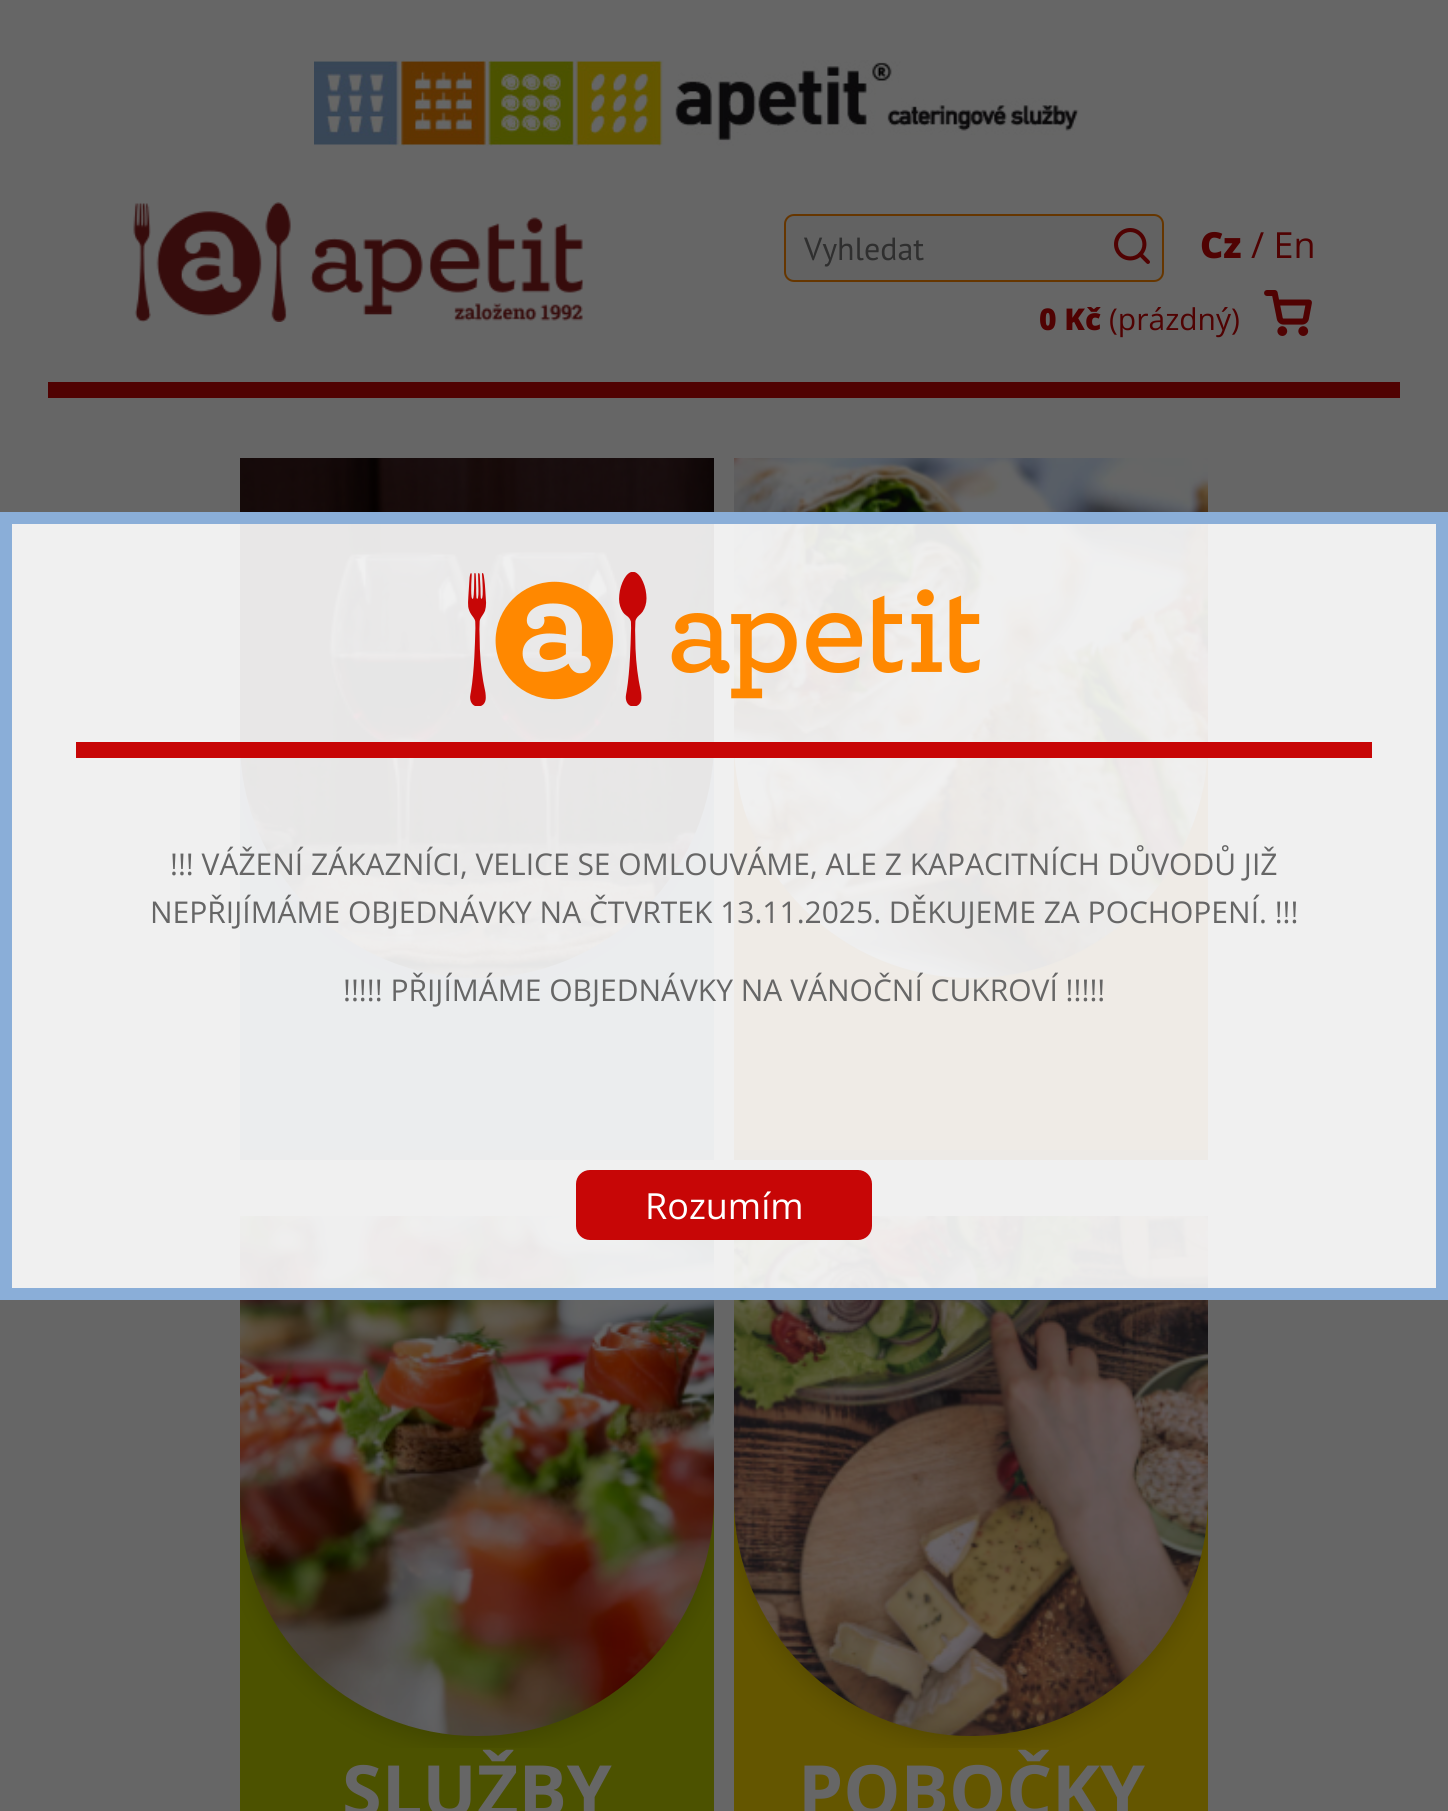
#include <cairo.h>
#include <math.h>
#include <stddef.h>

typedef struct { double x, y; const char *s; } line_t;
typedef struct { double x, y, w, h; unsigned color; } box_t;

static void ink(cairo_t *ctx, unsigned color) {
    cairo_set_source_rgb(ctx, (color >> 16) / 255.0, (color >> 8 & 255) / 255.0, (color & 255) / 255.0);
}

static void round_path(cairo_t *ctx, double x, double y, double w, double h, double r) {
    cairo_new_sub_path(ctx);
    cairo_arc(ctx, x + w - r, y + h - r, r, 0, M_PI / 2);
    cairo_arc(ctx, x + r, y + h - r, r, M_PI / 2, M_PI);
    cairo_arc(ctx, x + r, y + r, r, M_PI, 1.5 * M_PI);
    cairo_arc(ctx, x + w - r, y + r, r, 1.5 * M_PI, 2 * M_PI);
    cairo_close_path(ctx);
}

static void paste(cairo_t *ctx, const char *path, double x, double y, double w, double h) {
    cairo_surface_t *image = cairo_image_surface_create_from_png(path);
    cairo_save(ctx);
    cairo_set_source_surface(ctx, image, x, y);
    cairo_rectangle(ctx, x, y, w, h);
    cairo_fill(ctx);
    cairo_restore(ctx);
    cairo_surface_destroy(image);
}

int main(void) {
    cairo_surface_t *surface = cairo_image_surface_create(CAIRO_FORMAT_RGB24, 1448, 1811);
    cairo_t *ctx = cairo_create(surface);
    cairo_font_options_t *options = cairo_font_options_create();
    cairo_font_options_set_hint_metrics(options, CAIRO_HINT_METRICS_OFF);
    cairo_font_options_set_hint_style(options, CAIRO_HINT_STYLE_NONE);
    cairo_set_font_options(ctx, options);
    cairo_set_miter_limit(ctx, 4);
    ink(ctx, 0x666666);
    cairo_paint(ctx);
    paste(ctx, "media/1.png", 314, 60, 765, 86);
    paste(ctx, "media/2.png", 133, 202, 451, 120);
    ink(ctx, 0x626262);
    round_path(ctx, 785, 215, 378, 66, 9);
    cairo_fill_preserve(ctx);
    ink(ctx, 0x663600);
    cairo_stroke(ctx);
    cairo_select_font_face(ctx, "PT Sans", CAIRO_FONT_SLANT_NORMAL, CAIRO_FONT_WEIGHT_NORMAL);
    cairo_set_font_size(ctx, 32);
    ink(ctx, 0x2F2F2F);
    cairo_move_to(ctx, 804, 260);
    cairo_show_text(ctx, "Vyhledat");
    paste(ctx, "media/3.png", 1114, 228, 36, 36);
    cairo_select_font_face(ctx, "Open Sans ExtraBold", CAIRO_FONT_SLANT_NORMAL, CAIRO_FONT_WEIGHT_NORMAL);
    cairo_set_font_size(ctx, 36);
    ink(ctx, 0x500202);
    cairo_move_to(ctx, 1200, 258);
    cairo_show_text(ctx, "Cz");
    cairo_select_font_face(ctx, "Open Sans", CAIRO_FONT_SLANT_NORMAL, CAIRO_FONT_WEIGHT_NORMAL);
    cairo_move_to(ctx, 1251, 258);
    cairo_show_text(ctx, "/ En");
    cairo_select_font_face(ctx, "Open Sans ExtraBold", CAIRO_FONT_SLANT_NORMAL, CAIRO_FONT_WEIGHT_NORMAL);
    cairo_set_font_size(ctx, 30);
    cairo_move_to(ctx, 1039, 330);
    cairo_show_text(ctx, "0 Kč");
    cairo_select_font_face(ctx, "Open Sans", CAIRO_FONT_SLANT_NORMAL, CAIRO_FONT_WEIGHT_NORMAL);
    cairo_move_to(ctx, 1109, 330);
    cairo_show_text(ctx, "(prázdný)");
    paste(ctx, "media/4.png", 1264, 290, 48, 46);
    {
        static const box_t items[] = {
            {48, 382, 1352, 16, 0x500202},
            {240, 758, 474, 392, 0x374656},
            {240, 1150, 474, 10, 0x303948},
        };
        for (size_t i = 0; i < sizeof items / sizeof *items; i++) {
            ink(ctx, items[i].color);
            cairo_rectangle(ctx, items[i].x, items[i].y, items[i].w, items[i].h);
            cairo_fill(ctx);
        }
    }
    paste(ctx, "media/5.png", 240, 458, 474, 532);
    ink(ctx, 0x603302);
    cairo_rectangle(ctx, 734, 758, 474, 392);
    cairo_fill(ctx);
    ink(ctx, 0x452502);
    cairo_rectangle(ctx, 734, 1150, 474, 10);
    cairo_fill(ctx);
    paste(ctx, "media/6.png", 734, 458, 474, 532);
    ink(ctx, 0x4C5200);
    cairo_rectangle(ctx, 240, 1500, 474, 311);
    cairo_fill(ctx);
    paste(ctx, "media/7.png", 240, 1216, 474, 532);
    cairo_select_font_face(ctx, "Open Sans", CAIRO_FONT_SLANT_NORMAL, CAIRO_FONT_WEIGHT_BOLD);
    cairo_set_font_size(ctx, 72);
    ink(ctx, 0x666666);
    cairo_move_to(ctx, 342, 1817);
    cairo_show_text(ctx, "SLUŽBY");
    ink(ctx, 0x645600);
    cairo_rectangle(ctx, 734, 1500, 474, 311);
    cairo_fill(ctx);
    paste(ctx, "media/8.png", 734, 1216, 474, 532);
    ink(ctx, 0x666666);
    cairo_move_to(ctx, 798, 1817);
    cairo_show_text(ctx, "POBOČKY");
    cairo_set_source_rgba(ctx, 1, 1, 1, 0.9);
    cairo_rectangle(ctx, 6, 518, 1436, 776);
    cairo_fill_preserve(ctx);
    ink(ctx, 0x8AAED8);
    cairo_set_line_width(ctx, 12);
    cairo_stroke(ctx);
    paste(ctx, "media/9.png", 468, 572, 512, 134);
    ink(ctx, 0xC70606);
    cairo_rectangle(ctx, 76, 742, 1296, 16);
    cairo_fill(ctx);
    cairo_select_font_face(ctx, "Open Sans", CAIRO_FONT_SLANT_NORMAL, CAIRO_FONT_WEIGHT_NORMAL);
    cairo_set_font_size(ctx, 30);
    ink(ctx, 0x666666);
    {
        static const line_t items[] = {
            {170, 875, "!!! VÁŽENÍ ZÁKAZNÍCI, VELICE SE OMLOUVÁME, ALE Z KAPACITNÍCH DŮVODŮ JIŽ"},
            {150, 923, "NEPŘIJÍMÁME OBJEDNÁVKY NA ČTVRTEK 13.11.2025. DĚKUJEME ZA POCHOPENÍ. !!!"},
            {343, 1001, "!!!!! PŘIJÍMÁME OBJEDNÁVKY NA VÁNOČNÍ CUKROVÍ !!!!!"},
        };
        for (size_t i = 0; i < sizeof items / sizeof *items; i++) {
            cairo_move_to(ctx, items[i].x, items[i].y);
            cairo_show_text(ctx, items[i].s);
        }
    }
    ink(ctx, 0xC70606);
    round_path(ctx, 576, 1170, 296, 70, 14);
    cairo_fill(ctx);
    cairo_set_font_size(ctx, 36);
    ink(ctx, 0xFFFFFF);
    cairo_move_to(ctx, 645, 1219);
    cairo_show_text(ctx, "Rozumím");
    cairo_surface_write_to_png(surface, "image.png");
    cairo_font_options_destroy(options);
    cairo_destroy(ctx);
    cairo_surface_destroy(surface);
    return 0;
}
